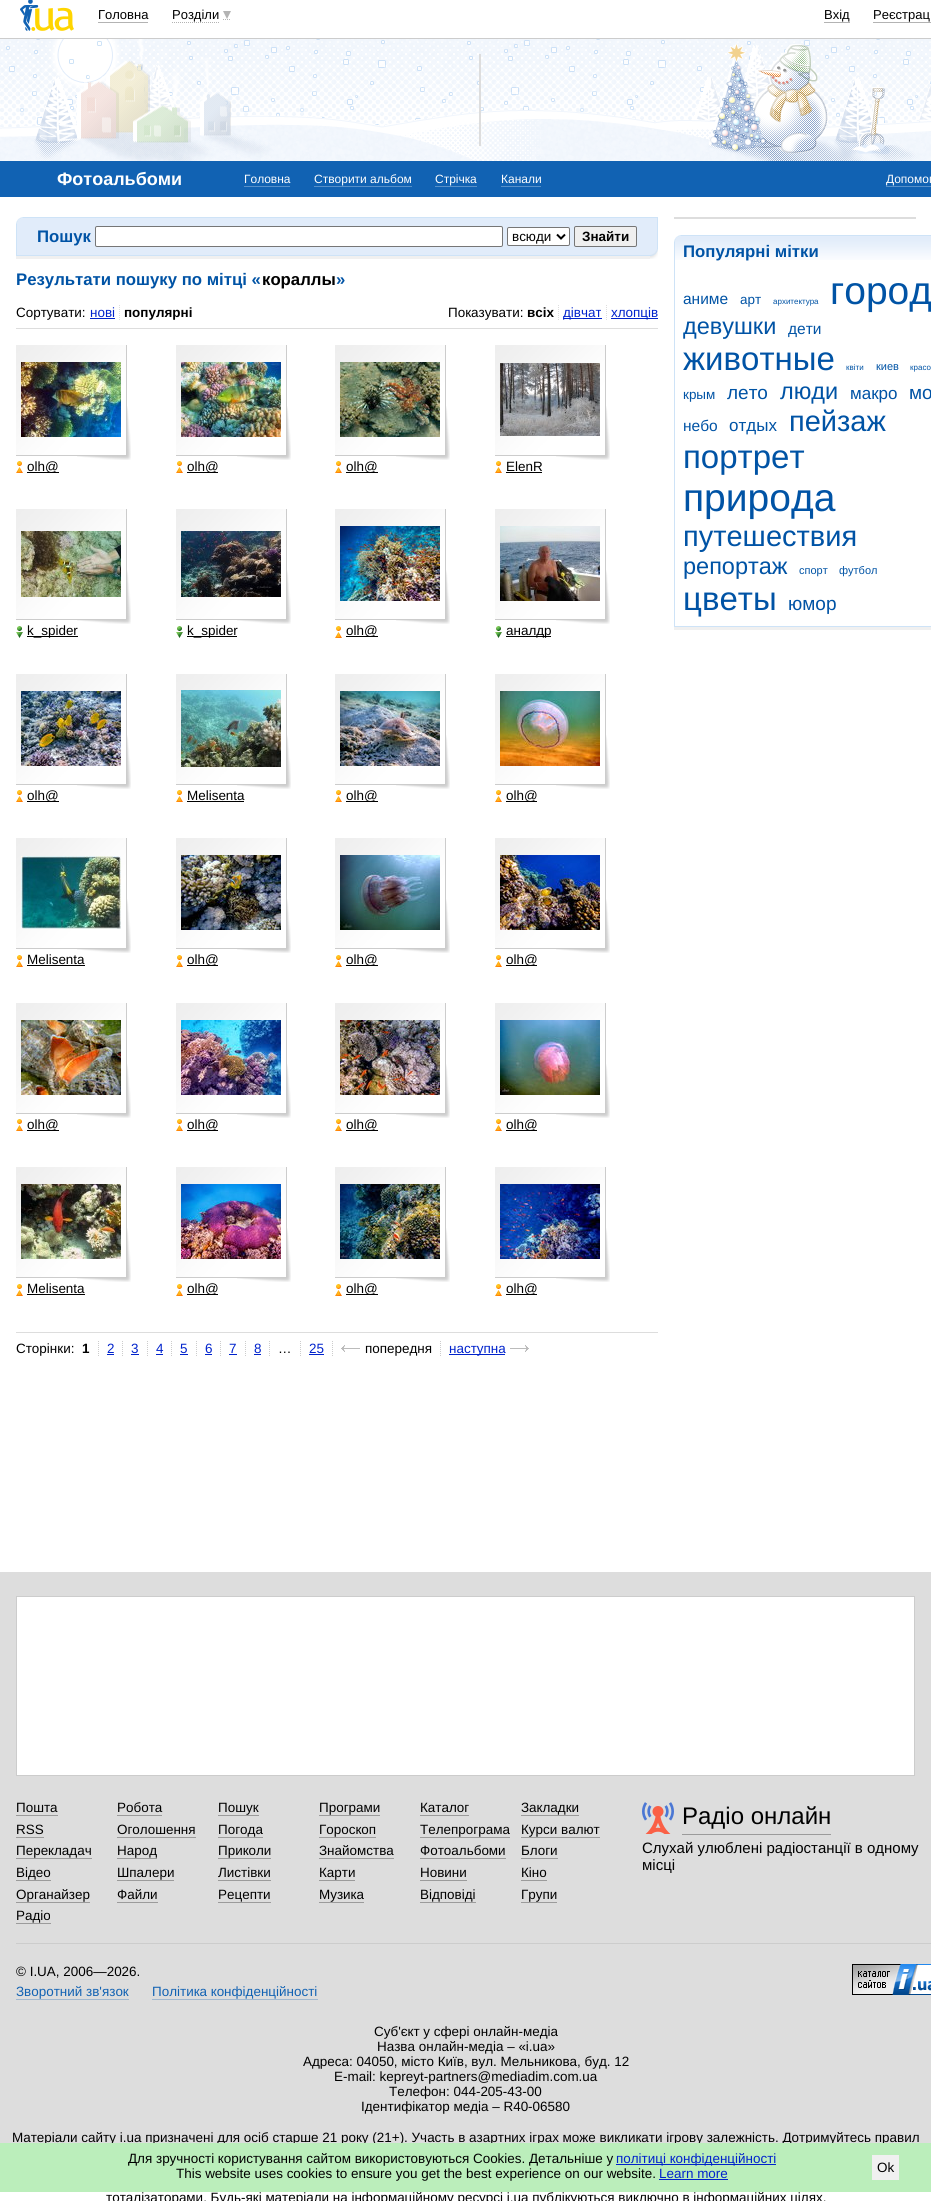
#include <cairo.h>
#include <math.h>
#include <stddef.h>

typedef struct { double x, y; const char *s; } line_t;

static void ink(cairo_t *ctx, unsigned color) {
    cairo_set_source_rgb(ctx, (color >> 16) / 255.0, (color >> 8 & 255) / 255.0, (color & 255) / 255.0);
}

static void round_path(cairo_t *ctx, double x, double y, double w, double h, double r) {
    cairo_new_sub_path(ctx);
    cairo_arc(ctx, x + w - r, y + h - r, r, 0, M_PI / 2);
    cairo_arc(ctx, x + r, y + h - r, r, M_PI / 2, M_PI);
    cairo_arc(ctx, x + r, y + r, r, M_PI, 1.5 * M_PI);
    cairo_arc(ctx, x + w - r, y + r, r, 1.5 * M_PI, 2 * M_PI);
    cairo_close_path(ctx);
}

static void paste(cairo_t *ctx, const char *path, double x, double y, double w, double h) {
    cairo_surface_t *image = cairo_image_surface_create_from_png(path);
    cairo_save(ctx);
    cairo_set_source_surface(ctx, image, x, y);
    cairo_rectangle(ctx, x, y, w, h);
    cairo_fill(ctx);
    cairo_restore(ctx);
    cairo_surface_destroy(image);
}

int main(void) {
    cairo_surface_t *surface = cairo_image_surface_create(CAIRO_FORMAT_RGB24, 931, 2201);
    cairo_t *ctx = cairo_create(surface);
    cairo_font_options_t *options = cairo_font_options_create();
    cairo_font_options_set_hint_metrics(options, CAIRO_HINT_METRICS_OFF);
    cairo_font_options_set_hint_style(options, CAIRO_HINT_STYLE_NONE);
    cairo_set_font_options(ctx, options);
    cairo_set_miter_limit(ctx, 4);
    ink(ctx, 0xFFFFFF);
    cairo_paint(ctx);
    ink(ctx, 0xCCCCCC);
    cairo_rectangle(ctx, 0, 38, 931, 1);
    cairo_fill(ctx);
    paste(ctx, "media/1.png", 20, 0, 54, 31);
    cairo_select_font_face(ctx, "Liberation Sans", CAIRO_FONT_SLANT_NORMAL, CAIRO_FONT_WEIGHT_NORMAL);
    cairo_set_font_size(ctx, 13);
    ink(ctx, 0x000000);
    cairo_move_to(ctx, 98, 19);
    cairo_show_text(ctx, "Головна");
    ink(ctx, 0xB3B3B3);
    cairo_rectangle(ctx, 98, 22, 50, 1);
    cairo_fill(ctx);
    cairo_new_path(ctx);
    cairo_move_to(ctx, 172, 22.5);
    cairo_line_to(ctx, 219, 22.5);
    cairo_move_to(ctx, 223, 19.5);
    cairo_line_to(ctx, 231, 19.5);
    cairo_set_line_width(ctx, 1);
    cairo_set_dash(ctx, (double[]){1, 1}, 2, 0);
    cairo_stroke(ctx);
    ink(ctx, 0x000000);
    cairo_move_to(ctx, 172, 19);
    cairo_show_text(ctx, "Розділи");
    ink(ctx, 0xB3B3B3);
    cairo_new_path(ctx);
    cairo_move_to(ctx, 223, 11);
    cairo_line_to(ctx, 231, 11);
    cairo_line_to(ctx, 227, 19);
    cairo_close_path(ctx);
    cairo_fill(ctx);
    ink(ctx, 0x000000);
    cairo_move_to(ctx, 824, 19);
    cairo_show_text(ctx, "Вхід");
    ink(ctx, 0xB3B3B3);
    cairo_rectangle(ctx, 824, 22, 26, 1);
    cairo_fill(ctx);
    ink(ctx, 0x000000);
    cairo_move_to(ctx, 873, 19);
    cairo_show_text(ctx, "Реєстрац");
    ink(ctx, 0xB3B3B3);
    cairo_rectangle(ctx, 873, 22, 58, 1);
    cairo_fill(ctx);
    paste(ctx, "media/2.png", 0, 39, 931, 122);
    ink(ctx, 0xDDDDDD);
    cairo_rectangle(ctx, 479, 54, 2, 92);
    cairo_fill(ctx);
    ink(ctx, 0x1162B3);
    cairo_rectangle(ctx, 0, 161, 931, 36);
    cairo_fill(ctx);
    cairo_select_font_face(ctx, "Liberation Sans", CAIRO_FONT_SLANT_NORMAL, CAIRO_FONT_WEIGHT_BOLD);
    cairo_set_font_size(ctx, 18);
    ink(ctx, 0xFFFFFF);
    cairo_move_to(ctx, 57, 185);
    cairo_show_text(ctx, "Фотоальбоми");
    cairo_select_font_face(ctx, "Liberation Sans", CAIRO_FONT_SLANT_NORMAL, CAIRO_FONT_WEIGHT_NORMAL);
    cairo_set_font_size(ctx, 12);
    cairo_move_to(ctx, 244, 183);
    cairo_show_text(ctx, "Головна");
    ink(ctx, 0x5891CA);
    cairo_rectangle(ctx, 244, 186, 46, 1);
    cairo_fill(ctx);
    ink(ctx, 0xFFFFFF);
    cairo_move_to(ctx, 314, 183);
    cairo_show_text(ctx, "Створити альбом");
    ink(ctx, 0x5891CA);
    cairo_rectangle(ctx, 314, 186, 98, 1);
    cairo_fill(ctx);
    ink(ctx, 0xFFFFFF);
    cairo_move_to(ctx, 435, 183);
    cairo_show_text(ctx, "Стрічка");
    ink(ctx, 0x5891CA);
    cairo_rectangle(ctx, 435, 186, 42, 1);
    cairo_fill(ctx);
    ink(ctx, 0xFFFFFF);
    cairo_move_to(ctx, 501, 183);
    cairo_show_text(ctx, "Канали");
    ink(ctx, 0x5891CA);
    cairo_rectangle(ctx, 501, 186, 40, 1);
    cairo_fill(ctx);
    ink(ctx, 0xFFFFFF);
    cairo_move_to(ctx, 886, 183);
    cairo_show_text(ctx, "Допомог");
    ink(ctx, 0x5891CA);
    cairo_rectangle(ctx, 886, 186, 45, 1);
    cairo_fill(ctx);
    ink(ctx, 0xF0F0F0);
    cairo_rectangle(ctx, 16, 256, 642, 3);
    cairo_fill(ctx);
    ink(ctx, 0xE1ECFA);
    cairo_rectangle(ctx, 16.5, 217.5, 641, 38);
    cairo_fill_preserve(ctx);
    ink(ctx, 0xCEE3F7);
    cairo_set_dash(ctx, NULL, 0, 0);
    cairo_stroke(ctx);
    paste(ctx, "media/3.png", 16, 217, 7, 7);
    cairo_select_font_face(ctx, "Liberation Sans", CAIRO_FONT_SLANT_NORMAL, CAIRO_FONT_WEIGHT_BOLD);
    cairo_set_font_size(ctx, 16.75);
    ink(ctx, 0x0053A5);
    cairo_move_to(ctx, 37, 242);
    cairo_show_text(ctx, "Пошук");
    ink(ctx, 0xFFFFFF);
    round_path(ctx, 95.5, 226.5, 407, 20, 1.5);
    cairo_fill_preserve(ctx);
    ink(ctx, 0x767676);
    cairo_stroke(ctx);
    ink(ctx, 0xFFFFFF);
    round_path(ctx, 507.5, 227.5, 62, 18, 1.5);
    cairo_fill_preserve(ctx);
    ink(ctx, 0x767676);
    cairo_stroke(ctx);
    cairo_new_path(ctx);
    cairo_move_to(ctx, 557, 234.5);
    cairo_line_to(ctx, 561, 238.5);
    cairo_line_to(ctx, 565, 234.5);
    ink(ctx, 0x000000);
    cairo_set_line_width(ctx, 2);
    cairo_stroke(ctx);
    cairo_select_font_face(ctx, "Liberation Sans", CAIRO_FONT_SLANT_NORMAL, CAIRO_FONT_WEIGHT_NORMAL);
    cairo_set_font_size(ctx, 13.45);
    cairo_move_to(ctx, 512, 241);
    cairo_show_text(ctx, "всюди");
    ink(ctx, 0xEFEFEF);
    round_path(ctx, 574.5, 226.5, 62, 20, 1.5);
    cairo_fill_preserve(ctx);
    ink(ctx, 0x767676);
    cairo_set_line_width(ctx, 1);
    cairo_stroke(ctx);
    cairo_select_font_face(ctx, "Liberation Sans", CAIRO_FONT_SLANT_NORMAL, CAIRO_FONT_WEIGHT_BOLD);
    ink(ctx, 0x000000);
    cairo_move_to(ctx, 582, 241);
    cairo_show_text(ctx, "Знайти");
    paste(ctx, "media/4.png", 650, 249, 8, 10);
    cairo_set_font_size(ctx, 16.75);
    ink(ctx, 0x0053A5);
    cairo_move_to(ctx, 16, 285);
    cairo_show_text(ctx, "Результати пошуку по мітці «");
    ink(ctx, 0x000000);
    cairo_move_to(ctx, 262, 285);
    cairo_show_text(ctx, "кораллы");
    ink(ctx, 0x0053A5);
    cairo_move_to(ctx, 336, 285);
    cairo_show_text(ctx, "»");
    cairo_select_font_face(ctx, "Liberation Sans", CAIRO_FONT_SLANT_NORMAL, CAIRO_FONT_WEIGHT_NORMAL);
    cairo_set_font_size(ctx, 13.45);
    ink(ctx, 0x000000);
    cairo_move_to(ctx, 16, 317);
    cairo_show_text(ctx, "Сортувати:");
    cairo_new_path(ctx);
    cairo_move_to(ctx, 119.5, 305);
    cairo_line_to(ctx, 119.5, 320);
    ink(ctx, 0xDDDDDD);
    cairo_set_dash(ctx, (double[]){1, 1}, 2, 0);
    cairo_stroke(ctx);
    ink(ctx, 0x0022CC);
    cairo_move_to(ctx, 90, 317);
    cairo_show_text(ctx, "нові");
    cairo_rectangle(ctx, 90, 318, 25, 1);
    cairo_fill(ctx);
    cairo_select_font_face(ctx, "Liberation Sans", CAIRO_FONT_SLANT_NORMAL, CAIRO_FONT_WEIGHT_BOLD);
    ink(ctx, 0x000000);
    cairo_move_to(ctx, 124, 317);
    cairo_show_text(ctx, "популярні");
    cairo_select_font_face(ctx, "Liberation Sans", CAIRO_FONT_SLANT_NORMAL, CAIRO_FONT_WEIGHT_NORMAL);
    cairo_move_to(ctx, 448, 317);
    cairo_show_text(ctx, "Показувати:");
    cairo_new_path(ctx);
    cairo_move_to(ctx, 558.5, 305);
    cairo_line_to(ctx, 558.5, 320);
    ink(ctx, 0xDDDDDD);
    cairo_stroke(ctx);
    cairo_select_font_face(ctx, "Liberation Sans", CAIRO_FONT_SLANT_NORMAL, CAIRO_FONT_WEIGHT_BOLD);
    ink(ctx, 0x000000);
    cairo_move_to(ctx, 527, 317);
    cairo_show_text(ctx, "всіх");
    cairo_new_path(ctx);
    cairo_move_to(ctx, 606.5, 305);
    cairo_line_to(ctx, 606.5, 320);
    ink(ctx, 0xDDDDDD);
    cairo_stroke(ctx);
    ink(ctx, 0x0022CC);
    cairo_rectangle(ctx, 563, 318, 39, 1);
    cairo_fill(ctx);
    cairo_select_font_face(ctx, "Liberation Sans", CAIRO_FONT_SLANT_NORMAL, CAIRO_FONT_WEIGHT_NORMAL);
    cairo_move_to(ctx, 563, 317);
    cairo_show_text(ctx, "дівчат");
    cairo_rectangle(ctx, 611, 318, 47, 1);
    cairo_fill(ctx);
    cairo_move_to(ctx, 611, 317);
    cairo_show_text(ctx, "хлопців");
    ink(ctx, 0xDDDDDD);
    cairo_rectangle(ctx, 16, 328, 642, 1);
    cairo_fill(ctx);
    paste(ctx, "media/5.png", 16, 345, 115, 115);
    paste(ctx, "media/6.png", 21, 362, 100, 75);
    paste(ctx, "media/7.png", 16, 461, 7, 12);
    ink(ctx, 0x000000);
    cairo_rectangle(ctx, 27, 472, 32, 1);
    cairo_fill(ctx);
    cairo_move_to(ctx, 27, 471);
    cairo_show_text(ctx, "olh@");
    paste(ctx, "media/5.png", 176, 345, 115, 115);
    paste(ctx, "media/8.png", 181, 362, 100, 75);
    paste(ctx, "media/7.png", 176, 461, 7, 12);
    cairo_rectangle(ctx, 187, 472, 31, 1);
    cairo_fill(ctx);
    cairo_move_to(ctx, 187, 471);
    cairo_show_text(ctx, "olh@");
    paste(ctx, "media/5.png", 335, 345, 115, 115);
    paste(ctx, "media/9.png", 340, 362, 100, 75);
    paste(ctx, "media/7.png", 335, 461, 7, 12);
    cairo_rectangle(ctx, 346, 472, 32, 1);
    cairo_fill(ctx);
    cairo_move_to(ctx, 346, 471);
    cairo_show_text(ctx, "olh@");
    paste(ctx, "media/5.png", 495, 345, 115, 115);
    paste(ctx, "media/10.png", 500, 363, 100, 73);
    paste(ctx, "media/7.png", 495, 461, 7, 12);
    cairo_move_to(ctx, 506, 471);
    cairo_show_text(ctx, "ElenR");
    cairo_rectangle(ctx, 506, 472, 36, 1);
    cairo_fill(ctx);
    paste(ctx, "media/5.png", 16, 509, 115, 115);
    paste(ctx, "media/11.png", 21, 531, 100, 66);
    paste(ctx, "media/12.png", 16, 626, 7, 12);
    cairo_rectangle(ctx, 27, 636, 51, 1);
    cairo_fill(ctx);
    cairo_move_to(ctx, 27, 635);
    cairo_show_text(ctx, "k_spider");
    paste(ctx, "media/5.png", 176, 509, 115, 115);
    paste(ctx, "media/13.png", 181, 531, 100, 66);
    paste(ctx, "media/12.png", 176, 626, 7, 12);
    cairo_rectangle(ctx, 187, 636, 50, 1);
    cairo_fill(ctx);
    cairo_move_to(ctx, 187, 635);
    cairo_show_text(ctx, "k_spider");
    paste(ctx, "media/5.png", 335, 509, 115, 115);
    paste(ctx, "media/14.png", 340, 526, 100, 75);
    paste(ctx, "media/7.png", 335, 626, 7, 12);
    cairo_rectangle(ctx, 346, 636, 32, 1);
    cairo_fill(ctx);
    cairo_move_to(ctx, 346, 635);
    cairo_show_text(ctx, "olh@");
    paste(ctx, "media/5.png", 495, 509, 115, 115);
    paste(ctx, "media/15.png", 500, 526, 100, 75);
    paste(ctx, "media/12.png", 495, 626, 7, 12);
    cairo_rectangle(ctx, 506, 636, 45, 1);
    cairo_fill(ctx);
    cairo_move_to(ctx, 506, 635);
    cairo_show_text(ctx, "аналдр");
    paste(ctx, "media/5.png", 16, 674, 115, 115);
    paste(ctx, "media/16.png", 21, 691, 100, 75);
    paste(ctx, "media/7.png", 16, 790, 7, 12);
    cairo_rectangle(ctx, 27, 801, 32, 1);
    cairo_fill(ctx);
    cairo_move_to(ctx, 27, 800);
    cairo_show_text(ctx, "olh@");
    paste(ctx, "media/5.png", 176, 674, 115, 115);
    paste(ctx, "media/17.png", 181, 690, 100, 77);
    paste(ctx, "media/7.png", 176, 790, 7, 12);
    cairo_move_to(ctx, 187, 800);
    cairo_show_text(ctx, "Melisenta");
    cairo_rectangle(ctx, 187, 801, 57, 1);
    cairo_fill(ctx);
    paste(ctx, "media/5.png", 335, 674, 115, 115);
    paste(ctx, "media/18.png", 340, 691, 100, 75);
    paste(ctx, "media/7.png", 335, 790, 7, 12);
    cairo_rectangle(ctx, 346, 801, 32, 1);
    cairo_fill(ctx);
    cairo_move_to(ctx, 346, 800);
    cairo_show_text(ctx, "olh@");
    paste(ctx, "media/5.png", 495, 674, 115, 115);
    paste(ctx, "media/19.png", 500, 691, 100, 75);
    paste(ctx, "media/7.png", 495, 790, 7, 12);
    cairo_rectangle(ctx, 506, 801, 31, 1);
    cairo_fill(ctx);
    cairo_move_to(ctx, 506, 800);
    cairo_show_text(ctx, "olh@");
    paste(ctx, "media/5.png", 16, 838, 115, 115);
    paste(ctx, "media/20.png", 21, 856, 100, 73);
    paste(ctx, "media/7.png", 16, 955, 7, 12);
    cairo_move_to(ctx, 27, 964);
    cairo_show_text(ctx, "Melisenta");
    cairo_rectangle(ctx, 27, 965, 58, 1);
    cairo_fill(ctx);
    paste(ctx, "media/5.png", 176, 838, 115, 115);
    paste(ctx, "media/21.png", 181, 855, 100, 75);
    paste(ctx, "media/7.png", 176, 955, 7, 12);
    cairo_rectangle(ctx, 187, 965, 31, 1);
    cairo_fill(ctx);
    cairo_move_to(ctx, 187, 964);
    cairo_show_text(ctx, "olh@");
    paste(ctx, "media/5.png", 335, 838, 115, 115);
    paste(ctx, "media/22.png", 340, 855, 100, 75);
    paste(ctx, "media/7.png", 335, 955, 7, 12);
    cairo_rectangle(ctx, 346, 965, 32, 1);
    cairo_fill(ctx);
    cairo_move_to(ctx, 346, 964);
    cairo_show_text(ctx, "olh@");
    paste(ctx, "media/5.png", 495, 838, 115, 115);
    paste(ctx, "media/23.png", 500, 855, 100, 75);
    paste(ctx, "media/7.png", 495, 955, 7, 12);
    cairo_rectangle(ctx, 506, 965, 31, 1);
    cairo_fill(ctx);
    cairo_move_to(ctx, 506, 964);
    cairo_show_text(ctx, "olh@");
    paste(ctx, "media/5.png", 16, 1003, 115, 115);
    paste(ctx, "media/24.png", 21, 1020, 100, 75);
    paste(ctx, "media/7.png", 16, 1119, 7, 12);
    cairo_rectangle(ctx, 27, 1130, 32, 1);
    cairo_fill(ctx);
    cairo_move_to(ctx, 27, 1129);
    cairo_show_text(ctx, "olh@");
    paste(ctx, "media/5.png", 176, 1003, 115, 115);
    paste(ctx, "media/25.png", 181, 1020, 100, 75);
    paste(ctx, "media/7.png", 176, 1119, 7, 12);
    cairo_rectangle(ctx, 187, 1130, 31, 1);
    cairo_fill(ctx);
    cairo_move_to(ctx, 187, 1129);
    cairo_show_text(ctx, "olh@");
    paste(ctx, "media/5.png", 335, 1003, 115, 115);
    paste(ctx, "media/26.png", 340, 1020, 100, 75);
    paste(ctx, "media/7.png", 335, 1119, 7, 12);
    cairo_rectangle(ctx, 346, 1130, 32, 1);
    cairo_fill(ctx);
    cairo_move_to(ctx, 346, 1129);
    cairo_show_text(ctx, "olh@");
    paste(ctx, "media/5.png", 495, 1003, 115, 115);
    paste(ctx, "media/27.png", 500, 1020, 100, 75);
    paste(ctx, "media/7.png", 495, 1119, 7, 12);
    cairo_rectangle(ctx, 506, 1130, 31, 1);
    cairo_fill(ctx);
    cairo_move_to(ctx, 506, 1129);
    cairo_show_text(ctx, "olh@");
    paste(ctx, "media/5.png", 16, 1167, 115, 115);
    paste(ctx, "media/28.png", 21, 1184, 100, 75);
    paste(ctx, "media/7.png", 16, 1284, 7, 12);
    cairo_move_to(ctx, 27, 1293);
    cairo_show_text(ctx, "Melisenta");
    cairo_rectangle(ctx, 27, 1294, 58, 1);
    cairo_fill(ctx);
    paste(ctx, "media/5.png", 176, 1167, 115, 115);
    paste(ctx, "media/29.png", 181, 1184, 100, 75);
    paste(ctx, "media/7.png", 176, 1284, 7, 12);
    cairo_rectangle(ctx, 187, 1294, 31, 1);
    cairo_fill(ctx);
    cairo_move_to(ctx, 187, 1293);
    cairo_show_text(ctx, "olh@");
    paste(ctx, "media/5.png", 335, 1167, 115, 115);
    paste(ctx, "media/30.png", 340, 1184, 100, 75);
    paste(ctx, "media/7.png", 335, 1284, 7, 12);
    cairo_rectangle(ctx, 346, 1294, 32, 1);
    cairo_fill(ctx);
    cairo_move_to(ctx, 346, 1293);
    cairo_show_text(ctx, "olh@");
    paste(ctx, "media/5.png", 495, 1167, 115, 115);
    paste(ctx, "media/31.png", 500, 1184, 100, 75);
    paste(ctx, "media/7.png", 495, 1284, 7, 12);
    cairo_rectangle(ctx, 506, 1294, 31, 1);
    cairo_fill(ctx);
    cairo_move_to(ctx, 506, 1293);
    cairo_show_text(ctx, "olh@");
    ink(ctx, 0xDDDDDD);
    cairo_rectangle(ctx, 16, 1332, 642, 1);
    cairo_fill(ctx);
    ink(ctx, 0x000000);
    cairo_move_to(ctx, 16, 1353);
    cairo_show_text(ctx, "Сторінки:");
    cairo_new_path(ctx);
    cairo_move_to(ctx, 98.5, 1341);
    cairo_line_to(ctx, 98.5, 1356);
    ink(ctx, 0xCCCCCC);
    cairo_stroke(ctx);
    cairo_select_font_face(ctx, "Liberation Sans", CAIRO_FONT_SLANT_NORMAL, CAIRO_FONT_WEIGHT_BOLD);
    ink(ctx, 0x000000);
    cairo_move_to(ctx, 82, 1353);
    cairo_show_text(ctx, "1");
    cairo_new_path(ctx);
    cairo_move_to(ctx, 122.5, 1341);
    cairo_line_to(ctx, 122.5, 1356);
    ink(ctx, 0xCCCCCC);
    cairo_stroke(ctx);
    cairo_select_font_face(ctx, "Liberation Sans", CAIRO_FONT_SLANT_NORMAL, CAIRO_FONT_WEIGHT_NORMAL);
    ink(ctx, 0x0022CC);
    cairo_move_to(ctx, 107, 1353);
    cairo_show_text(ctx, "2");
    cairo_rectangle(ctx, 107, 1354, 7, 1);
    cairo_fill(ctx);
    cairo_new_path(ctx);
    cairo_move_to(ctx, 147.5, 1341);
    cairo_line_to(ctx, 147.5, 1356);
    ink(ctx, 0xCCCCCC);
    cairo_stroke(ctx);
    ink(ctx, 0x0022CC);
    cairo_move_to(ctx, 131, 1353);
    cairo_show_text(ctx, "3");
    cairo_rectangle(ctx, 131, 1354, 8, 1);
    cairo_fill(ctx);
    cairo_new_path(ctx);
    cairo_move_to(ctx, 171.5, 1341);
    cairo_line_to(ctx, 171.5, 1356);
    ink(ctx, 0xCCCCCC);
    cairo_stroke(ctx);
    ink(ctx, 0x0022CC);
    cairo_move_to(ctx, 156, 1353);
    cairo_show_text(ctx, "4");
    cairo_rectangle(ctx, 156, 1354, 7, 1);
    cairo_fill(ctx);
    cairo_new_path(ctx);
    cairo_move_to(ctx, 196.5, 1341);
    cairo_line_to(ctx, 196.5, 1356);
    ink(ctx, 0xCCCCCC);
    cairo_stroke(ctx);
    ink(ctx, 0x0022CC);
    cairo_move_to(ctx, 180, 1353);
    cairo_show_text(ctx, "5");
    cairo_rectangle(ctx, 180, 1354, 8, 1);
    cairo_fill(ctx);
    cairo_new_path(ctx);
    cairo_move_to(ctx, 220.5, 1341);
    cairo_line_to(ctx, 220.5, 1356);
    ink(ctx, 0xCCCCCC);
    cairo_stroke(ctx);
    ink(ctx, 0x0022CC);
    cairo_move_to(ctx, 205, 1353);
    cairo_show_text(ctx, "6");
    cairo_rectangle(ctx, 205, 1354, 7, 1);
    cairo_fill(ctx);
    cairo_new_path(ctx);
    cairo_move_to(ctx, 245.5, 1341);
    cairo_line_to(ctx, 245.5, 1356);
    ink(ctx, 0xCCCCCC);
    cairo_stroke(ctx);
    ink(ctx, 0x0022CC);
    cairo_move_to(ctx, 229, 1353);
    cairo_show_text(ctx, "7");
    cairo_rectangle(ctx, 229, 1354, 8, 1);
    cairo_fill(ctx);
    cairo_new_path(ctx);
    cairo_move_to(ctx, 269.5, 1341);
    cairo_line_to(ctx, 269.5, 1356);
    ink(ctx, 0xCCCCCC);
    cairo_stroke(ctx);
    ink(ctx, 0x0022CC);
    cairo_move_to(ctx, 254, 1353);
    cairo_show_text(ctx, "8");
    cairo_rectangle(ctx, 254, 1354, 7, 1);
    cairo_fill(ctx);
    cairo_new_path(ctx);
    cairo_move_to(ctx, 300.5, 1341);
    cairo_line_to(ctx, 300.5, 1356);
    ink(ctx, 0xCCCCCC);
    cairo_stroke(ctx);
    ink(ctx, 0x000000);
    cairo_move_to(ctx, 278, 1353);
    cairo_show_text(ctx, "…");
    cairo_new_path(ctx);
    cairo_move_to(ctx, 332.5, 1341);
    cairo_line_to(ctx, 332.5, 1356);
    ink(ctx, 0xCCCCCC);
    cairo_stroke(ctx);
    ink(ctx, 0x0022CC);
    cairo_move_to(ctx, 309, 1353);
    cairo_show_text(ctx, "25");
    cairo_rectangle(ctx, 309, 1354, 15, 1);
    cairo_fill(ctx);
    cairo_new_path(ctx);
    cairo_move_to(ctx, 440.5, 1341);
    cairo_line_to(ctx, 440.5, 1356);
    ink(ctx, 0xCCCCCC);
    cairo_stroke(ctx);
    paste(ctx, "media/32.png", 341, 1345, 19, 7);
    ink(ctx, 0x000000);
    cairo_move_to(ctx, 365, 1353);
    cairo_show_text(ctx, "попередня");
    ink(ctx, 0x0022CC);
    cairo_rectangle(ctx, 449, 1354, 56, 1);
    cairo_fill(ctx);
    cairo_move_to(ctx, 449, 1353);
    cairo_show_text(ctx, "наступна");
    paste(ctx, "media/33.png", 510, 1345, 19, 7);
    ink(ctx, 0xDDDDDD);
    cairo_rectangle(ctx, 674, 217, 242, 2);
    cairo_fill(ctx);
    ink(ctx, 0xF0F0F0);
    cairo_rectangle(ctx, 674, 627, 257, 3);
    cairo_fill(ctx);
    paste(ctx, "media/35.png", 675, 236, 256, 24);
    cairo_rectangle(ctx, 674.5, 235.5, 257, 391);
    ink(ctx, 0xCEE3F7);
    cairo_set_dash(ctx, NULL, 0, 0);
    cairo_stroke(ctx);
    paste(ctx, "media/34.png", 674, 235, 7, 7);
    cairo_select_font_face(ctx, "Liberation Sans", CAIRO_FONT_SLANT_NORMAL, CAIRO_FONT_WEIGHT_BOLD);
    cairo_set_font_size(ctx, 16.75);
    ink(ctx, 0x0053A5);
    cairo_move_to(ctx, 683, 257);
    cairo_show_text(ctx, "Популярні мітки");
    cairo_select_font_face(ctx, "Liberation Sans", CAIRO_FONT_SLANT_NORMAL, CAIRO_FONT_WEIGHT_NORMAL);
    cairo_set_font_size(ctx, 15.5);
    cairo_move_to(ctx, 683, 304);
    cairo_show_text(ctx, "аниме");
    cairo_set_font_size(ctx, 13.45);
    cairo_move_to(ctx, 740, 304);
    cairo_show_text(ctx, "арт");
    cairo_set_font_size(ctx, 8);
    cairo_move_to(ctx, 773, 304);
    cairo_show_text(ctx, "архитектура");
    cairo_set_font_size(ctx, 39);
    cairo_move_to(ctx, 830, 304);
    cairo_show_text(ctx, "город");
    cairo_set_font_size(ctx, 23.5);
    cairo_move_to(ctx, 683, 334);
    cairo_show_text(ctx, "девушки");
    cairo_set_font_size(ctx, 15.5);
    cairo_move_to(ctx, 788, 334);
    cairo_show_text(ctx, "дети");
    cairo_set_font_size(ctx, 33);
    cairo_move_to(ctx, 683, 370);
    cairo_show_text(ctx, "животные");
    cairo_set_font_size(ctx, 8);
    cairo_move_to(ctx, 846, 370);
    cairo_show_text(ctx, "квіти");
    cairo_set_font_size(ctx, 11);
    cairo_move_to(ctx, 876, 370);
    cairo_show_text(ctx, "киев");
    cairo_set_font_size(ctx, 8);
    cairo_move_to(ctx, 910, 370);
    cairo_show_text(ctx, "красо");
    cairo_set_font_size(ctx, 13.45);
    cairo_move_to(ctx, 683, 399);
    cairo_show_text(ctx, "крым");
    cairo_set_font_size(ctx, 19);
    cairo_move_to(ctx, 727, 399);
    cairo_show_text(ctx, "лето");
    cairo_set_font_size(ctx, 23.5);
    cairo_move_to(ctx, 780, 399);
    cairo_show_text(ctx, "люди");
    cairo_set_font_size(ctx, 17);
    cairo_move_to(ctx, 850, 399);
    cairo_show_text(ctx, "макро");
    cairo_set_font_size(ctx, 19);
    cairo_move_to(ctx, 909, 399);
    cairo_show_text(ctx, "мо");
    cairo_set_font_size(ctx, 15.5);
    cairo_move_to(ctx, 683, 431);
    cairo_show_text(ctx, "небо");
    cairo_set_font_size(ctx, 17);
    cairo_move_to(ctx, 729, 431);
    cairo_show_text(ctx, "отдых");
    cairo_set_font_size(ctx, 29);
    cairo_move_to(ctx, 789, 431);
    cairo_show_text(ctx, "пейзаж");
    cairo_set_font_size(ctx, 33);
    cairo_move_to(ctx, 683, 468);
    cairo_show_text(ctx, "портрет");
    cairo_set_font_size(ctx, 39);
    cairo_move_to(ctx, 683, 511);
    cairo_show_text(ctx, "природа");
    cairo_set_font_size(ctx, 29);
    cairo_move_to(ctx, 683, 546);
    cairo_show_text(ctx, "путешествия");
    cairo_set_font_size(ctx, 23.5);
    cairo_move_to(ctx, 683, 574);
    cairo_show_text(ctx, "репортаж");
    cairo_set_font_size(ctx, 11);
    cairo_move_to(ctx, 799, 574);
    cairo_show_text(ctx, "спорт");
    cairo_move_to(ctx, 839, 574);
    cairo_show_text(ctx, "футбол");
    cairo_set_font_size(ctx, 33);
    cairo_move_to(ctx, 683, 610);
    cairo_show_text(ctx, "цветы");
    cairo_set_font_size(ctx, 19);
    cairo_move_to(ctx, 788, 610);
    cairo_show_text(ctx, "юмор");
    ink(ctx, 0xDDDDDD);
    cairo_rectangle(ctx, 0, 1572, 931, 571);
    cairo_fill(ctx);
    ink(ctx, 0xFFFFFF);
    cairo_rectangle(ctx, 16.5, 1596.5, 898, 179);
    cairo_fill_preserve(ctx);
    ink(ctx, 0xCCCCCC);
    cairo_stroke(ctx);
    cairo_set_font_size(ctx, 13.45);
    ink(ctx, 0x000000);
    cairo_move_to(ctx, 16, 1812);
    cairo_show_text(ctx, "Пошта");
    ink(ctx, 0x9B9B9B);
    cairo_rectangle(ctx, 16, 1815, 42, 1);
    cairo_fill(ctx);
    ink(ctx, 0x000000);
    cairo_move_to(ctx, 117, 1812);
    cairo_show_text(ctx, "Робота");
    ink(ctx, 0x9B9B9B);
    cairo_rectangle(ctx, 117, 1815, 45, 1);
    cairo_fill(ctx);
    ink(ctx, 0x000000);
    cairo_move_to(ctx, 218, 1812);
    cairo_show_text(ctx, "Пошук");
    ink(ctx, 0x9B9B9B);
    cairo_rectangle(ctx, 218, 1815, 41, 1);
    cairo_fill(ctx);
    ink(ctx, 0x000000);
    cairo_move_to(ctx, 319, 1812);
    cairo_show_text(ctx, "Програми");
    ink(ctx, 0x9B9B9B);
    cairo_rectangle(ctx, 319, 1815, 61, 1);
    cairo_fill(ctx);
    ink(ctx, 0x000000);
    cairo_move_to(ctx, 420, 1812);
    cairo_show_text(ctx, "Каталог");
    ink(ctx, 0x9B9B9B);
    cairo_rectangle(ctx, 420, 1815, 49, 1);
    cairo_fill(ctx);
    ink(ctx, 0x000000);
    cairo_move_to(ctx, 521, 1812);
    cairo_show_text(ctx, "Закладки");
    ink(ctx, 0x9B9B9B);
    cairo_rectangle(ctx, 521, 1815, 58, 1);
    cairo_fill(ctx);
    ink(ctx, 0x000000);
    cairo_move_to(ctx, 16, 1834);
    cairo_show_text(ctx, "RSS");
    ink(ctx, 0x9B9B9B);
    cairo_rectangle(ctx, 16, 1837, 28, 1);
    cairo_fill(ctx);
    ink(ctx, 0x000000);
    cairo_move_to(ctx, 117, 1834);
    cairo_show_text(ctx, "Оголошення");
    ink(ctx, 0x9B9B9B);
    cairo_rectangle(ctx, 117, 1837, 79, 1);
    cairo_fill(ctx);
    ink(ctx, 0x000000);
    cairo_move_to(ctx, 218, 1834);
    cairo_show_text(ctx, "Погода");
    ink(ctx, 0x9B9B9B);
    cairo_rectangle(ctx, 218, 1837, 45, 1);
    cairo_fill(ctx);
    ink(ctx, 0x000000);
    cairo_move_to(ctx, 319, 1834);
    cairo_show_text(ctx, "Гороскоп");
    ink(ctx, 0x9B9B9B);
    cairo_rectangle(ctx, 319, 1837, 57, 1);
    cairo_fill(ctx);
    ink(ctx, 0x000000);
    cairo_move_to(ctx, 420, 1834);
    cairo_show_text(ctx, "Телепрограма");
    ink(ctx, 0x9B9B9B);
    cairo_rectangle(ctx, 420, 1837, 90, 1);
    cairo_fill(ctx);
    ink(ctx, 0x000000);
    cairo_move_to(ctx, 521, 1834);
    cairo_show_text(ctx, "Курси валют");
    ink(ctx, 0x9B9B9B);
    cairo_rectangle(ctx, 521, 1837, 79, 1);
    cairo_fill(ctx);
    ink(ctx, 0x000000);
    cairo_move_to(ctx, 16, 1855);
    cairo_show_text(ctx, "Перекладач");
    ink(ctx, 0x9B9B9B);
    cairo_rectangle(ctx, 16, 1858, 76, 1);
    cairo_fill(ctx);
    ink(ctx, 0x000000);
    cairo_move_to(ctx, 117, 1855);
    cairo_show_text(ctx, "Народ");
    ink(ctx, 0x9B9B9B);
    cairo_rectangle(ctx, 117, 1858, 40, 1);
    cairo_fill(ctx);
    ink(ctx, 0x000000);
    cairo_move_to(ctx, 218, 1855);
    cairo_show_text(ctx, "Приколи");
    ink(ctx, 0x9B9B9B);
    cairo_rectangle(ctx, 218, 1858, 53, 1);
    cairo_fill(ctx);
    ink(ctx, 0x000000);
    cairo_move_to(ctx, 319, 1855);
    cairo_show_text(ctx, "Знайомства");
    ink(ctx, 0x9B9B9B);
    cairo_rectangle(ctx, 319, 1858, 75, 1);
    cairo_fill(ctx);
    ink(ctx, 0x000000);
    cairo_move_to(ctx, 420, 1855);
    cairo_show_text(ctx, "Фотоальбоми");
    ink(ctx, 0x9B9B9B);
    cairo_rectangle(ctx, 420, 1858, 86, 1);
    cairo_fill(ctx);
    ink(ctx, 0x000000);
    cairo_move_to(ctx, 521, 1855);
    cairo_show_text(ctx, "Блоги");
    ink(ctx, 0x9B9B9B);
    cairo_rectangle(ctx, 521, 1858, 37, 1);
    cairo_fill(ctx);
    ink(ctx, 0x000000);
    cairo_move_to(ctx, 16, 1877);
    cairo_show_text(ctx, "Відео");
    ink(ctx, 0x9B9B9B);
    cairo_rectangle(ctx, 16, 1880, 35, 1);
    cairo_fill(ctx);
    ink(ctx, 0x000000);
    cairo_move_to(ctx, 117, 1877);
    cairo_show_text(ctx, "Шпалери");
    ink(ctx, 0x9B9B9B);
    cairo_rectangle(ctx, 117, 1880, 57, 1);
    cairo_fill(ctx);
    ink(ctx, 0x000000);
    cairo_move_to(ctx, 218, 1877);
    cairo_show_text(ctx, "Листівки");
    ink(ctx, 0x9B9B9B);
    cairo_rectangle(ctx, 218, 1880, 53, 1);
    cairo_fill(ctx);
    ink(ctx, 0x000000);
    cairo_move_to(ctx, 319, 1877);
    cairo_show_text(ctx, "Карти");
    ink(ctx, 0x9B9B9B);
    cairo_rectangle(ctx, 319, 1880, 36, 1);
    cairo_fill(ctx);
    ink(ctx, 0x000000);
    cairo_move_to(ctx, 420, 1877);
    cairo_show_text(ctx, "Новини");
    ink(ctx, 0x9B9B9B);
    cairo_rectangle(ctx, 420, 1880, 47, 1);
    cairo_fill(ctx);
    ink(ctx, 0x000000);
    cairo_move_to(ctx, 521, 1877);
    cairo_show_text(ctx, "Кіно");
    ink(ctx, 0x9B9B9B);
    cairo_rectangle(ctx, 521, 1880, 26, 1);
    cairo_fill(ctx);
    ink(ctx, 0x000000);
    cairo_move_to(ctx, 16, 1899);
    cairo_show_text(ctx, "Органайзер");
    ink(ctx, 0x9B9B9B);
    cairo_rectangle(ctx, 16, 1902, 74, 1);
    cairo_fill(ctx);
    ink(ctx, 0x000000);
    cairo_move_to(ctx, 117, 1899);
    cairo_show_text(ctx, "Файли");
    ink(ctx, 0x9B9B9B);
    cairo_rectangle(ctx, 117, 1902, 41, 1);
    cairo_fill(ctx);
    ink(ctx, 0x000000);
    cairo_move_to(ctx, 218, 1899);
    cairo_show_text(ctx, "Рецепти");
    ink(ctx, 0x9B9B9B);
    cairo_rectangle(ctx, 218, 1902, 53, 1);
    cairo_fill(ctx);
    ink(ctx, 0x000000);
    cairo_move_to(ctx, 319, 1899);
    cairo_show_text(ctx, "Музика");
    ink(ctx, 0x9B9B9B);
    cairo_rectangle(ctx, 319, 1902, 45, 1);
    cairo_fill(ctx);
    ink(ctx, 0x000000);
    cairo_move_to(ctx, 420, 1899);
    cairo_show_text(ctx, "Відповіді");
    ink(ctx, 0x9B9B9B);
    cairo_rectangle(ctx, 420, 1902, 56, 1);
    cairo_fill(ctx);
    ink(ctx, 0x000000);
    cairo_move_to(ctx, 521, 1899);
    cairo_show_text(ctx, "Групи");
    ink(ctx, 0x9B9B9B);
    cairo_rectangle(ctx, 521, 1902, 36, 1);
    cairo_fill(ctx);
    ink(ctx, 0x000000);
    cairo_move_to(ctx, 16, 1920);
    cairo_show_text(ctx, "Радіо");
    ink(ctx, 0x9B9B9B);
    cairo_rectangle(ctx, 16, 1923, 35, 1);
    cairo_fill(ctx);
    cairo_rectangle(ctx, 682, 1834, 149, 1);
    cairo_fill(ctx);
    paste(ctx, "media/36.png", 642, 1802, 32, 32);
    cairo_set_font_size(ctx, 24);
    ink(ctx, 0x000000);
    cairo_move_to(ctx, 682, 1824);
    cairo_show_text(ctx, "Радіо онлайн");
    cairo_set_font_size(ctx, 15);
    cairo_move_to(ctx, 642, 1853);
    cairo_show_text(ctx, "Слухай улюблені радіостанції в одному");
    cairo_move_to(ctx, 642, 1870);
    cairo_show_text(ctx, "місці");
    ink(ctx, 0xCCCCCC);
    cairo_rectangle(ctx, 16, 1943, 915, 1);
    cairo_fill(ctx);
    cairo_set_font_size(ctx, 13.45);
    ink(ctx, 0x000000);
    cairo_move_to(ctx, 16, 1976);
    cairo_show_text(ctx, "© I.UA, 2006—2026.");
    paste(ctx, "media/37.png", 852, 1964, 79, 31);
    ink(ctx, 0x1162B3);
    cairo_move_to(ctx, 16, 1996);
    cairo_show_text(ctx, "Зворотний зв'язок");
    ink(ctx, 0xA0B8D0);
    cairo_rectangle(ctx, 16, 1999, 113, 1);
    cairo_fill(ctx);
    ink(ctx, 0x1162B3);
    cairo_move_to(ctx, 152, 1996);
    cairo_show_text(ctx, "Політика конфіденційності");
    ink(ctx, 0xA0B8D0);
    cairo_rectangle(ctx, 152, 1999, 166, 1);
    cairo_fill(ctx);
    ink(ctx, 0x000000);
    {
        static const line_t items[] = {
            {374, 2036, "Суб'єкт у сфері онлайн-медіа"},
            {377, 2051, "Назва онлайн-медіа – «i.ua»"},
            {303, 2066, "Адреса: 04050, місто Київ, вул. Мельникова, буд. 12"},
            {334, 2081, "E-mail: kepreyt-partners@mediadim.com.ua"},
            {389, 2096, "Телефон: 044-205-43-00"},
            {361, 2111, "Ідентифікатор медіа – R40-06580"},
            {12, 2142, "Матеріали сайту i.ua призначені для осіб старше 21 року (21+). Участь в азартних іграх може викликати ігрову залежність. Дотримуйтесь правил"},
            {106, 2202, "тоталізаторами. Будь-які матеріали на інформаційному ресурсі i.ua публікуються виключно в інформаційних цілях."},
        };
        for (size_t i = 0; i < sizeof items / sizeof *items; i++) {
            cairo_move_to(ctx, items[i].x, items[i].y);
            cairo_show_text(ctx, items[i].s);
        }
    }
    ink(ctx, 0xBBEEBB);
    cairo_rectangle(ctx, 0, 2143, 931, 49);
    cairo_fill(ctx);
    ink(ctx, 0x000000);
    cairo_move_to(ctx, 128, 2163);
    cairo_show_text(ctx, "Для зручності користування сайтом використовуються Cookies. Детальніше у");
    ink(ctx, 0x0022CC);
    cairo_rectangle(ctx, 616, 2164, 160, 1);
    cairo_fill(ctx);
    cairo_move_to(ctx, 616, 2163);
    cairo_show_text(ctx, "політиці конфіденційності");
    ink(ctx, 0x000000);
    cairo_move_to(ctx, 176, 2178);
    cairo_show_text(ctx, "This website uses cookies to ensure you get the best experience on our website.");
    ink(ctx, 0x0022CC);
    cairo_move_to(ctx, 659, 2178);
    cairo_show_text(ctx, "Learn more");
    cairo_rectangle(ctx, 659, 2179, 69, 1);
    cairo_fill(ctx);
    ink(ctx, 0xF0F0F0);
    cairo_rectangle(ctx, 872, 2155, 27, 25);
    cairo_fill(ctx);
    ink(ctx, 0x000000);
    cairo_move_to(ctx, 877, 2172);
    cairo_show_text(ctx, "Ok");
    cairo_surface_write_to_png(surface, "image.png");
    cairo_font_options_destroy(options);
    cairo_destroy(ctx);
    cairo_surface_destroy(surface);
    return 0;
}
